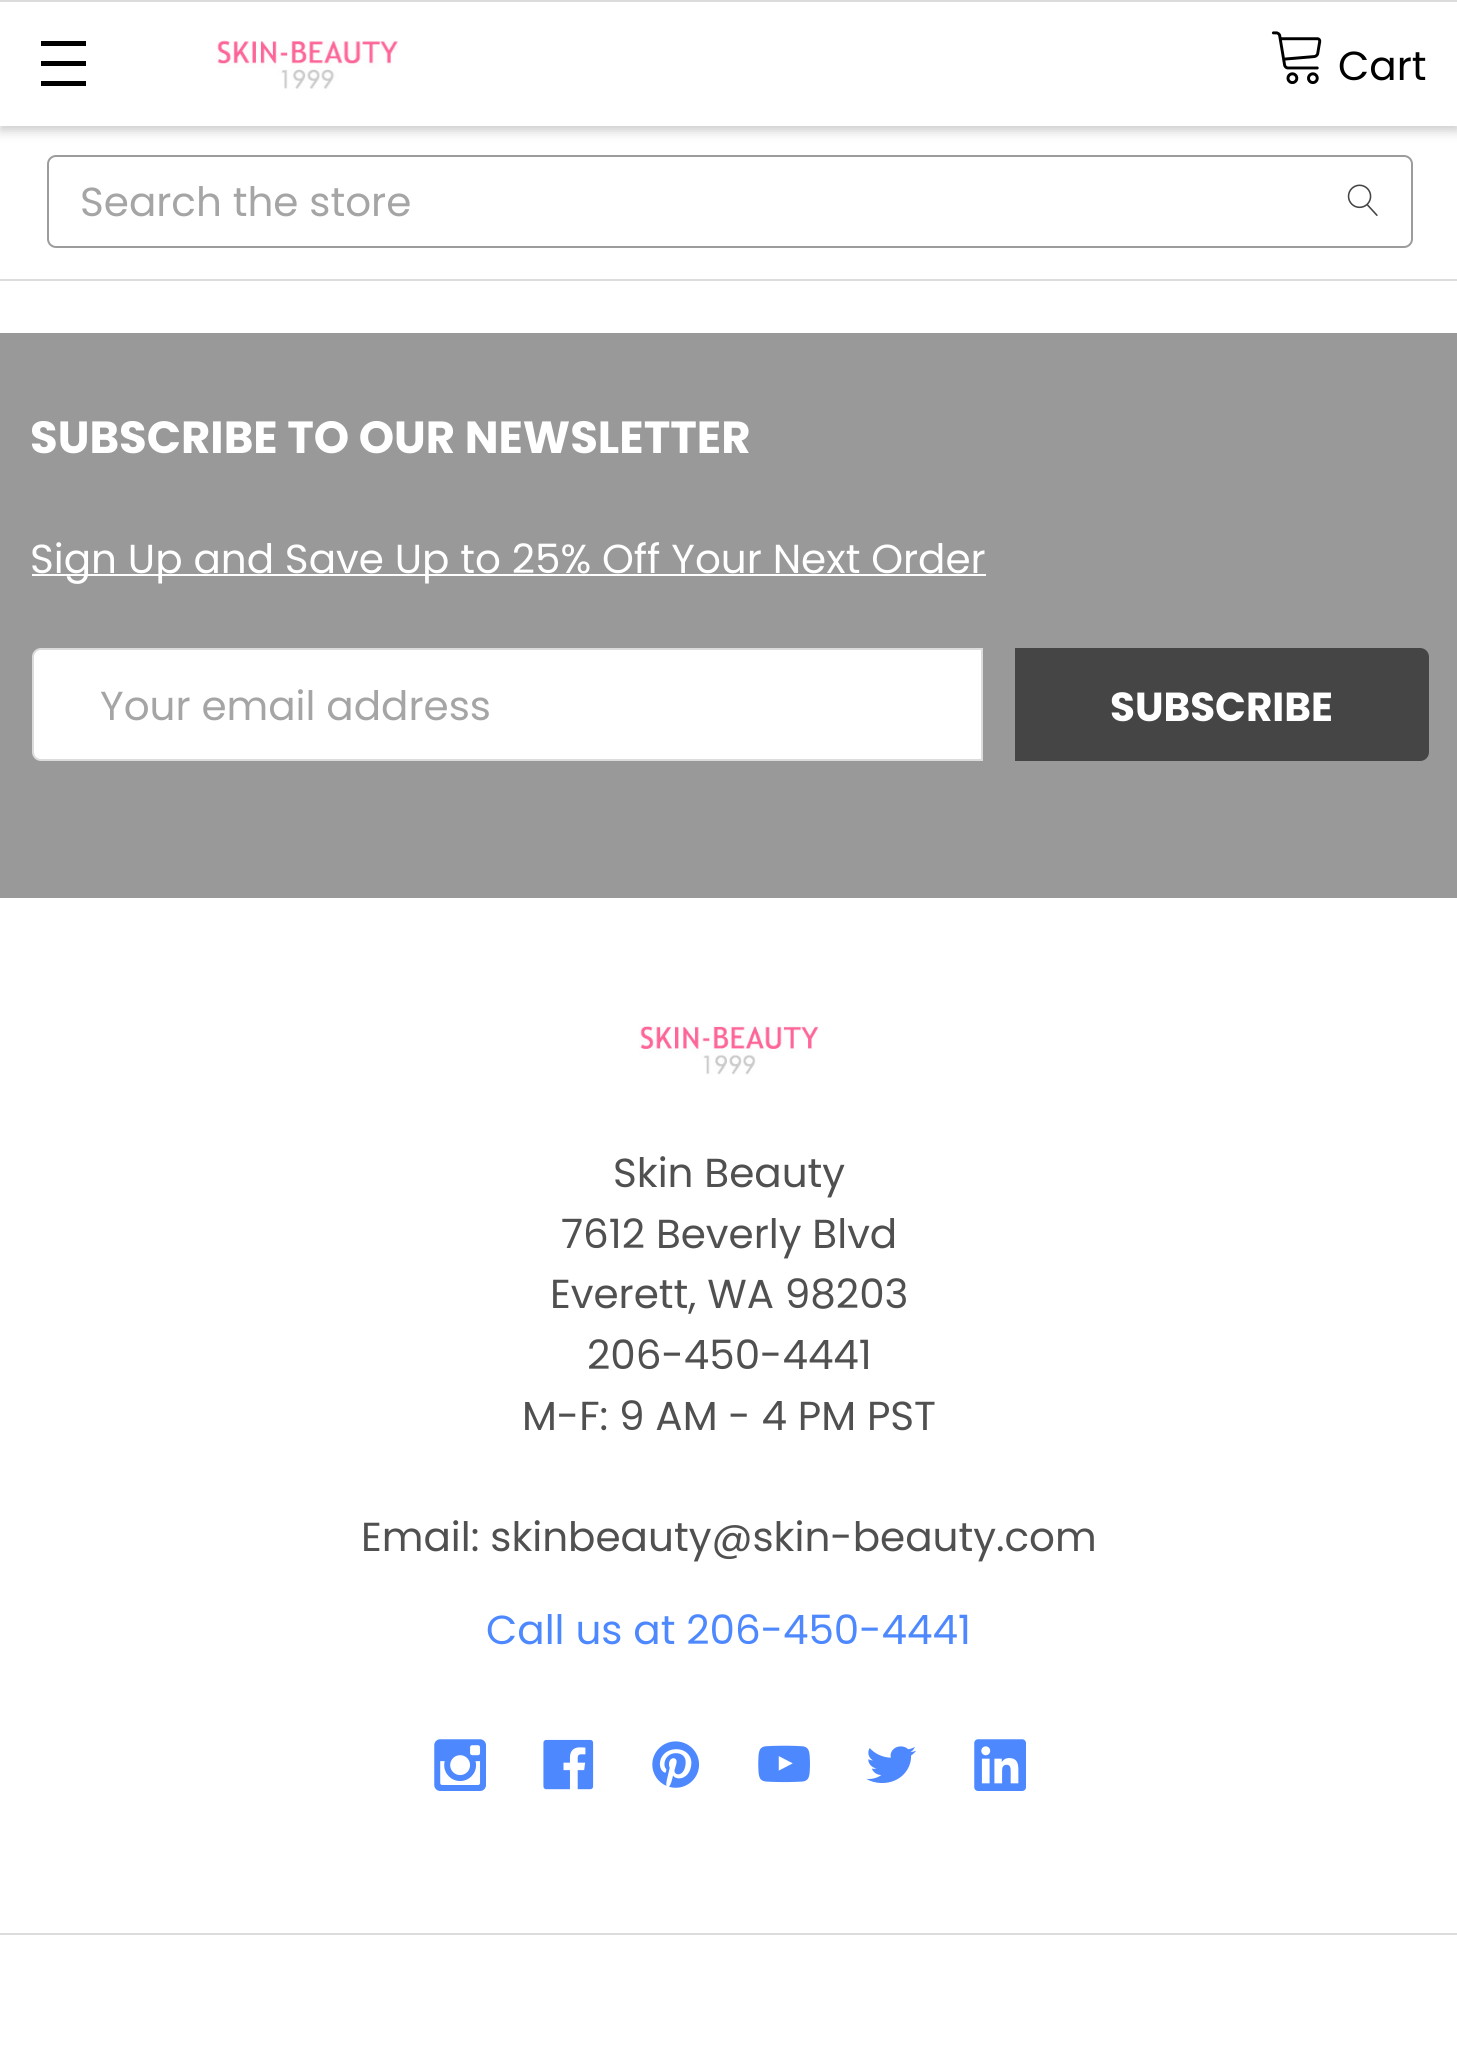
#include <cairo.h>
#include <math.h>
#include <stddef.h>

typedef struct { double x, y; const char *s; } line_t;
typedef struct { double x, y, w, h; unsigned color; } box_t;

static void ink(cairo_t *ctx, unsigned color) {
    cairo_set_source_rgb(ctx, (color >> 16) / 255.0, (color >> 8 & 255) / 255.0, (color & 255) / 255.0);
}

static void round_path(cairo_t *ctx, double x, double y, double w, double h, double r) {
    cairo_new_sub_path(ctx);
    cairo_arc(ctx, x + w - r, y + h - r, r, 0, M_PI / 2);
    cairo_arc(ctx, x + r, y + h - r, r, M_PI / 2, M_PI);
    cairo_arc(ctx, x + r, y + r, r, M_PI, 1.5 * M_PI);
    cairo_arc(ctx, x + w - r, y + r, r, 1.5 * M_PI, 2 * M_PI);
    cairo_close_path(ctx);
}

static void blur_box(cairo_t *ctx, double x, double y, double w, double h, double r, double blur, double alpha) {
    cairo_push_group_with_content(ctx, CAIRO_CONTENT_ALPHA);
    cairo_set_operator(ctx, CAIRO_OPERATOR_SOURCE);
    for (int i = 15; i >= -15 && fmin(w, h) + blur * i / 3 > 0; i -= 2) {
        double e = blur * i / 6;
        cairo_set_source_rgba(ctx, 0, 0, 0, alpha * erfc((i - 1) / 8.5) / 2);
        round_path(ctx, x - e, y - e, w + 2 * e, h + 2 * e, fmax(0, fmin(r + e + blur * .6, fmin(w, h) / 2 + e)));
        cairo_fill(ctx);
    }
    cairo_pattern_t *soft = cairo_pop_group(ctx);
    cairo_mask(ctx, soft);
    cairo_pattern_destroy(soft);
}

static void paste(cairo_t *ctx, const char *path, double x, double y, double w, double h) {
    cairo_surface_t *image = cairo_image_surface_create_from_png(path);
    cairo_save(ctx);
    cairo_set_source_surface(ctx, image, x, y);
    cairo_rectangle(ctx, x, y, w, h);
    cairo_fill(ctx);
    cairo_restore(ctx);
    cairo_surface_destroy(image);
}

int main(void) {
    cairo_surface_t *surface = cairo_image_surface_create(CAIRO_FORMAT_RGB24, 1457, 2068);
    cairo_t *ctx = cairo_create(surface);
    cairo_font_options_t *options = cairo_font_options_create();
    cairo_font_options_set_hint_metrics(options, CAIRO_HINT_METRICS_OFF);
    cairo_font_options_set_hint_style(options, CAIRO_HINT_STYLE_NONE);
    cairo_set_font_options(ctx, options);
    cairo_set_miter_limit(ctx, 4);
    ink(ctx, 0xFFFFFF);
    cairo_paint(ctx);
    ink(ctx, 0x000000);
    blur_box(ctx, 0, 5, 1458, 126, 0, 5.5, 0.2);
    {
        static const box_t items[] = {
            {0, 2, 1457, 124, 0xFFFFFF},
            {0, 0, 1457, 2, 0xDCDCDC},
            {41, 61, 45, 5, 0x000000},
            {41, 41, 45, 5, 0x000000},
            {41, 81, 45, 5, 0x000000},
        };
        for (size_t i = 0; i < sizeof items / sizeof *items; i++) {
            ink(ctx, items[i].color);
            cairo_rectangle(ctx, items[i].x, items[i].y, items[i].w, items[i].h);
            cairo_fill(ctx);
        }
    }
    paste(ctx, "media/1.png", 216, 40, 182, 49);
    paste(ctx, "media/2.png", 1271, 31, 51, 53);
    cairo_select_font_face(ctx, "Poppins", CAIRO_FONT_SLANT_NORMAL, CAIRO_FONT_WEIGHT_NORMAL);
    cairo_set_font_size(ctx, 40.5);
    cairo_move_to(ctx, 1338, 80);
    cairo_show_text(ctx, "Cart");
    ink(ctx, 0xDDDDDD);
    cairo_rectangle(ctx, 0, 279, 1457, 2);
    cairo_fill(ctx);
    round_path(ctx, 48, 156, 1364, 91, 8);
    ink(ctx, 0x9C9C9C);
    cairo_stroke(ctx);
    ink(ctx, 0xA5A5A5);
    cairo_move_to(ctx, 80, 216);
    cairo_show_text(ctx, "Search the store");
    paste(ctx, "media/3.png", 1347, 184, 31, 32);
    ink(ctx, 0x999999);
    cairo_rectangle(ctx, 0, 333, 1457, 565);
    cairo_fill(ctx);
    cairo_select_font_face(ctx, "Poppins", CAIRO_FONT_SLANT_NORMAL, CAIRO_FONT_WEIGHT_BOLD);
    cairo_set_font_size(ctx, 45);
    ink(ctx, 0xFFFFFF);
    cairo_move_to(ctx, 30, 453);
    cairo_show_text(ctx, "SUBSCRIBE TO OUR NEWSLETTER");
    cairo_rectangle(ctx, 32, 574, 954, 2);
    cairo_fill(ctx);
    cairo_select_font_face(ctx, "Poppins", CAIRO_FONT_SLANT_NORMAL, CAIRO_FONT_WEIGHT_NORMAL);
    cairo_set_font_size(ctx, 40.5);
    cairo_move_to(ctx, 30, 573);
    cairo_show_text(ctx, "Sign Up and Save Up to 25% Off Your Next Order");
    cairo_new_path(ctx);
    cairo_move_to(ctx, 41, 649);
    cairo_line_to(ctx, 982, 649);
    cairo_line_to(ctx, 982, 760);
    cairo_line_to(ctx, 41, 760);
    cairo_curve_to(ctx, 36.5, 760, 33, 756.5, 33, 752);
    cairo_line_to(ctx, 33, 657);
    cairo_curve_to(ctx, 33, 652.5, 36.5, 649, 41, 649);
    cairo_close_path(ctx);
    cairo_fill_preserve(ctx);
    ink(ctx, 0xDCDCDC);
    cairo_stroke(ctx);
    ink(ctx, 0xA5A5A5);
    cairo_move_to(ctx, 100, 720);
    cairo_show_text(ctx, "Your email address");
    ink(ctx, 0x454545);
    cairo_new_path(ctx);
    cairo_move_to(ctx, 1016, 649);
    cairo_line_to(ctx, 1420, 649);
    cairo_curve_to(ctx, 1424.5, 649, 1428, 652.5, 1428, 657);
    cairo_line_to(ctx, 1428, 752);
    cairo_curve_to(ctx, 1428, 756.5, 1424.5, 760, 1420, 760);
    cairo_line_to(ctx, 1016, 760);
    cairo_close_path(ctx);
    cairo_fill_preserve(ctx);
    cairo_stroke(ctx);
    cairo_select_font_face(ctx, "Poppins", CAIRO_FONT_SLANT_NORMAL, CAIRO_FONT_WEIGHT_BOLD);
    ink(ctx, 0xFFFFFF);
    cairo_move_to(ctx, 1110, 721);
    cairo_show_text(ctx, "SUBSCRIBE");
    ink(ctx, 0xDCDCDC);
    cairo_rectangle(ctx, 0, 1933, 1457, 2);
    cairo_fill(ctx);
    paste(ctx, "media/4.png", 639, 1026, 180, 49);
    cairo_select_font_face(ctx, "Poppins", CAIRO_FONT_SLANT_NORMAL, CAIRO_FONT_WEIGHT_NORMAL);
    ink(ctx, 0x505050);
    {
        static const line_t items[] = {
            {613, 1187, "Skin Beauty"},
            {561, 1248, "7612 Beverly Blvd"},
            {550, 1308, "Everett, WA 98203"},
            {587, 1369, "206-450-4441"},
            {522, 1430, "M-F: 9 AM - 4 PM PST"},
            {361, 1551, "Email: skinbeauty@skin-beauty.com"},
        };
        for (size_t i = 0; i < sizeof items / sizeof *items; i++) {
            cairo_move_to(ctx, items[i].x, items[i].y);
            cairo_show_text(ctx, items[i].s);
        }
    }
    ink(ctx, 0x4D88FF);
    cairo_move_to(ctx, 486, 1644);
    cairo_show_text(ctx, "Call us at 206-450-4441");
    paste(ctx, "media/5.png", 434, 1739, 52, 52);
    paste(ctx, "media/6.png", 543, 1739, 51, 51);
    paste(ctx, "media/7.png", 652, 1741, 48, 47);
    paste(ctx, "media/8.png", 758, 1745, 52, 38);
    paste(ctx, "media/9.png", 866, 1746, 50, 37);
    paste(ctx, "media/10.png", 974, 1739, 52, 52);
    cairo_surface_write_to_png(surface, "image.png");
    cairo_font_options_destroy(options);
    cairo_destroy(ctx);
    cairo_surface_destroy(surface);
    return 0;
}
